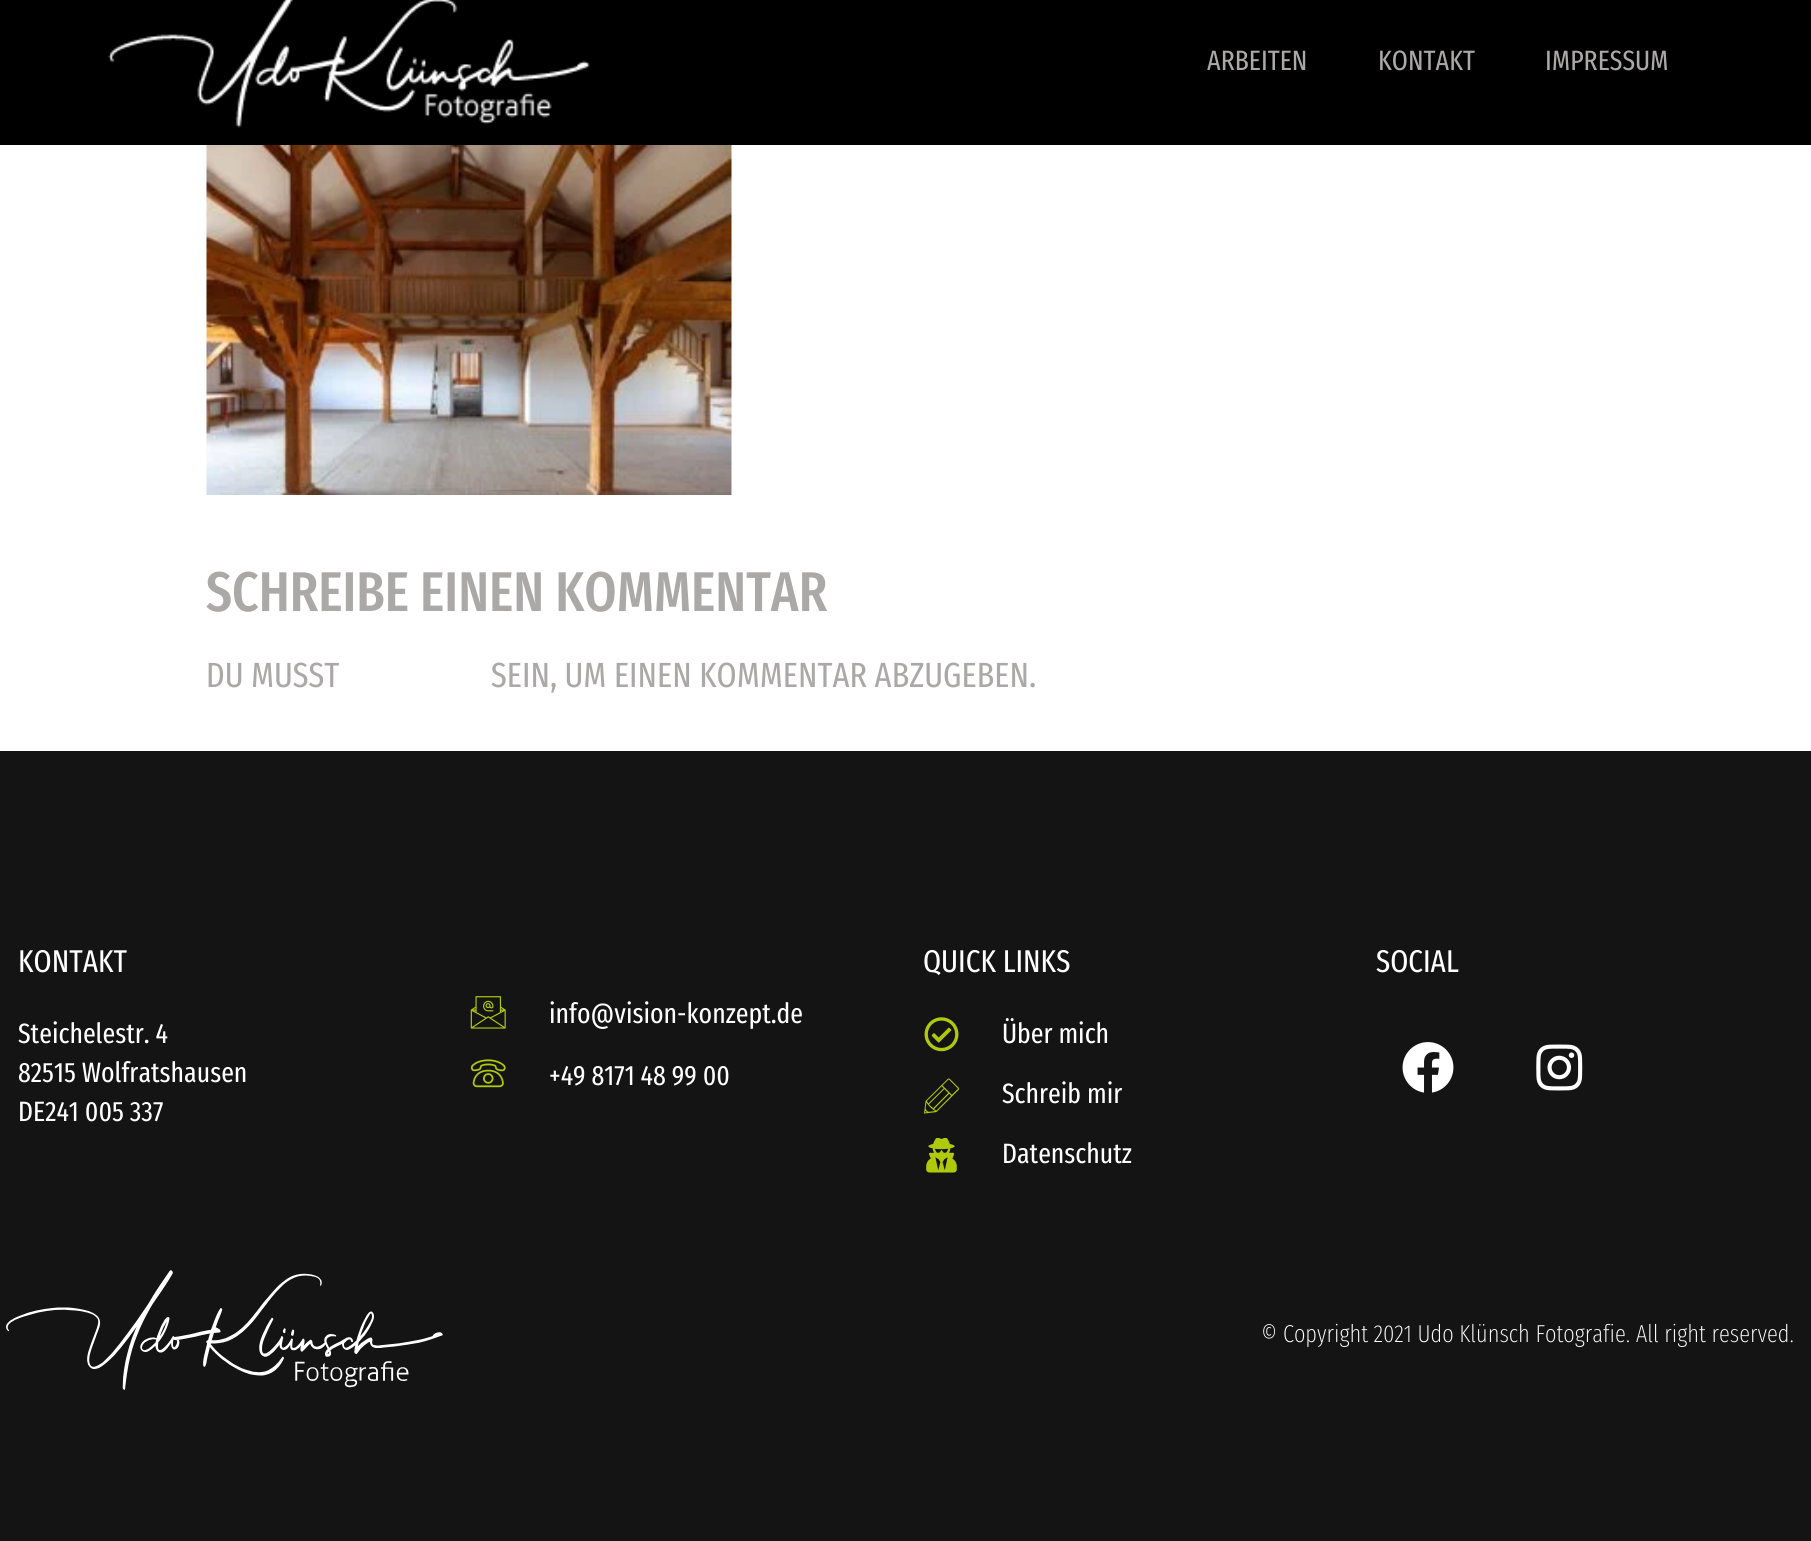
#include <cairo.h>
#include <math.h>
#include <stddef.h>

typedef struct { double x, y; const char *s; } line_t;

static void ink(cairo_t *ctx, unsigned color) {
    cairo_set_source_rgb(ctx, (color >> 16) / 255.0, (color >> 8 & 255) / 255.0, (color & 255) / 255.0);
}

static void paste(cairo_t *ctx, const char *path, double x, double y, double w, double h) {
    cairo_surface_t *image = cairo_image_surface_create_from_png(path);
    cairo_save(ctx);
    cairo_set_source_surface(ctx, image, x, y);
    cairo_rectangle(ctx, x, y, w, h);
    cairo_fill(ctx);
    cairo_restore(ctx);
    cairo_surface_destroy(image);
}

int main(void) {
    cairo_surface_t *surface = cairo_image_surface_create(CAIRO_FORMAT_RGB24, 1811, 1541);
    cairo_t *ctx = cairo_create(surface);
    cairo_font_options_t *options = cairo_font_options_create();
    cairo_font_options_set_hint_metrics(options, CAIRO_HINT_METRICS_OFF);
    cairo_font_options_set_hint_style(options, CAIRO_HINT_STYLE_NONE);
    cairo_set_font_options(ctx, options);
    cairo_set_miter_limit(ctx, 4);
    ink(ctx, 0xFFFFFF);
    cairo_paint(ctx);
    ink(ctx, 0x000000);
    cairo_rectangle(ctx, 0, 0, 1811, 145);
    cairo_fill(ctx);
    paste(ctx, "media/1.png", 108, 0, 482, 128);
    cairo_select_font_face(ctx, "Fira Sans Extra Condensed", CAIRO_FONT_SLANT_NORMAL, CAIRO_FONT_WEIGHT_NORMAL);
    cairo_set_font_size(ctx, 28);
    ink(ctx, 0xABA8A8);
    {
        static const line_t items[] = {
            {1207, 70, "ARBEITEN"},
            {1378, 70, "KONTAKT"},
            {1545, 70, "IMPRESSUM"},
        };
        for (size_t i = 0; i < sizeof items / sizeof *items; i++) {
            cairo_move_to(ctx, items[i].x, items[i].y);
            cairo_show_text(ctx, items[i].s);
        }
    }
    paste(ctx, "media/2.png", 206, 145, 526, 350);
    cairo_select_font_face(ctx, "Fira Sans Extra Condensed Medium", CAIRO_FONT_SLANT_NORMAL, CAIRO_FONT_WEIGHT_NORMAL);
    cairo_set_font_size(ctx, 56);
    cairo_move_to(ctx, 206, 611);
    cairo_show_text(ctx, "SCHREIBE EINEN KOMMENTAR");
    cairo_select_font_face(ctx, "Fira Sans Extra Condensed", CAIRO_FONT_SLANT_NORMAL, CAIRO_FONT_WEIGHT_NORMAL);
    cairo_set_font_size(ctx, 35);
    cairo_move_to(ctx, 206, 687);
    cairo_show_text(ctx, "DU MUSST");
    cairo_move_to(ctx, 491, 687);
    cairo_show_text(ctx, "SEIN, UM EINEN KOMMENTAR ABZUGEBEN.");
    ink(ctx, 0x151414);
    cairo_rectangle(ctx, 0, 751, 1811, 790);
    cairo_fill(ctx);
    cairo_set_font_size(ctx, 31.5);
    ink(ctx, 0xFFFFFF);
    cairo_move_to(ctx, 18, 972);
    cairo_show_text(ctx, "KONTAKT");
    cairo_set_font_size(ctx, 28);
    {
        static const line_t items[] = {
            {18, 1043, "Steichelestr. 4"},
            {18, 1082, "82515 Wolfratshausen"},
            {18, 1121, "DE241 005 337"},
        };
        for (size_t i = 0; i < sizeof items / sizeof *items; i++) {
            cairo_move_to(ctx, items[i].x, items[i].y);
            cairo_show_text(ctx, items[i].s);
        }
    }
    cairo_set_font_size(ctx, 31.5);
    cairo_move_to(ctx, 923, 972);
    cairo_show_text(ctx, "QUICK LINKS");
    paste(ctx, "media/3.png", 924, 1017, 35, 35);
    cairo_set_font_size(ctx, 28);
    cairo_move_to(ctx, 1002, 1043);
    cairo_show_text(ctx, "Über mich");
    paste(ctx, "media/4.png", 924, 1078, 36, 36);
    cairo_move_to(ctx, 1002, 1103);
    cairo_show_text(ctx, "Schreib mir");
    paste(ctx, "media/5.png", 926, 1138, 31, 35);
    cairo_move_to(ctx, 1002, 1163);
    cairo_show_text(ctx, "Datenschutz");
    cairo_set_font_size(ctx, 31.5);
    cairo_move_to(ctx, 1376, 972);
    cairo_show_text(ctx, "SOCIAL");
    paste(ctx, "media/6.png", 1402, 1042, 52, 51);
    paste(ctx, "media/7.png", 1536, 1044, 47, 47);
    paste(ctx, "media/8.png", 470, 996, 36, 33);
    cairo_set_font_size(ctx, 28);
    cairo_move_to(ctx, 549, 1023);
    cairo_show_text(ctx, "info@vision-konzept.de");
    paste(ctx, "media/9.png", 470, 1059, 36, 29);
    cairo_move_to(ctx, 549, 1085);
    cairo_show_text(ctx, "+49 8171 48 99 00");
    paste(ctx, "media/10.png", 6, 1270, 437, 120);
    cairo_select_font_face(ctx, "Fira Sans Extra Condensed ExtraLight", CAIRO_FONT_SLANT_NORMAL, CAIRO_FONT_WEIGHT_NORMAL);
    cairo_set_font_size(ctx, 24.5);
    cairo_move_to(ctx, 1261, 1342);
    cairo_show_text(ctx, "© Copyright 2021 Udo Klünsch Fotografie. All right reserved.");
    cairo_surface_write_to_png(surface, "image.png");
    cairo_font_options_destroy(options);
    cairo_destroy(ctx);
    cairo_surface_destroy(surface);
    return 0;
}
